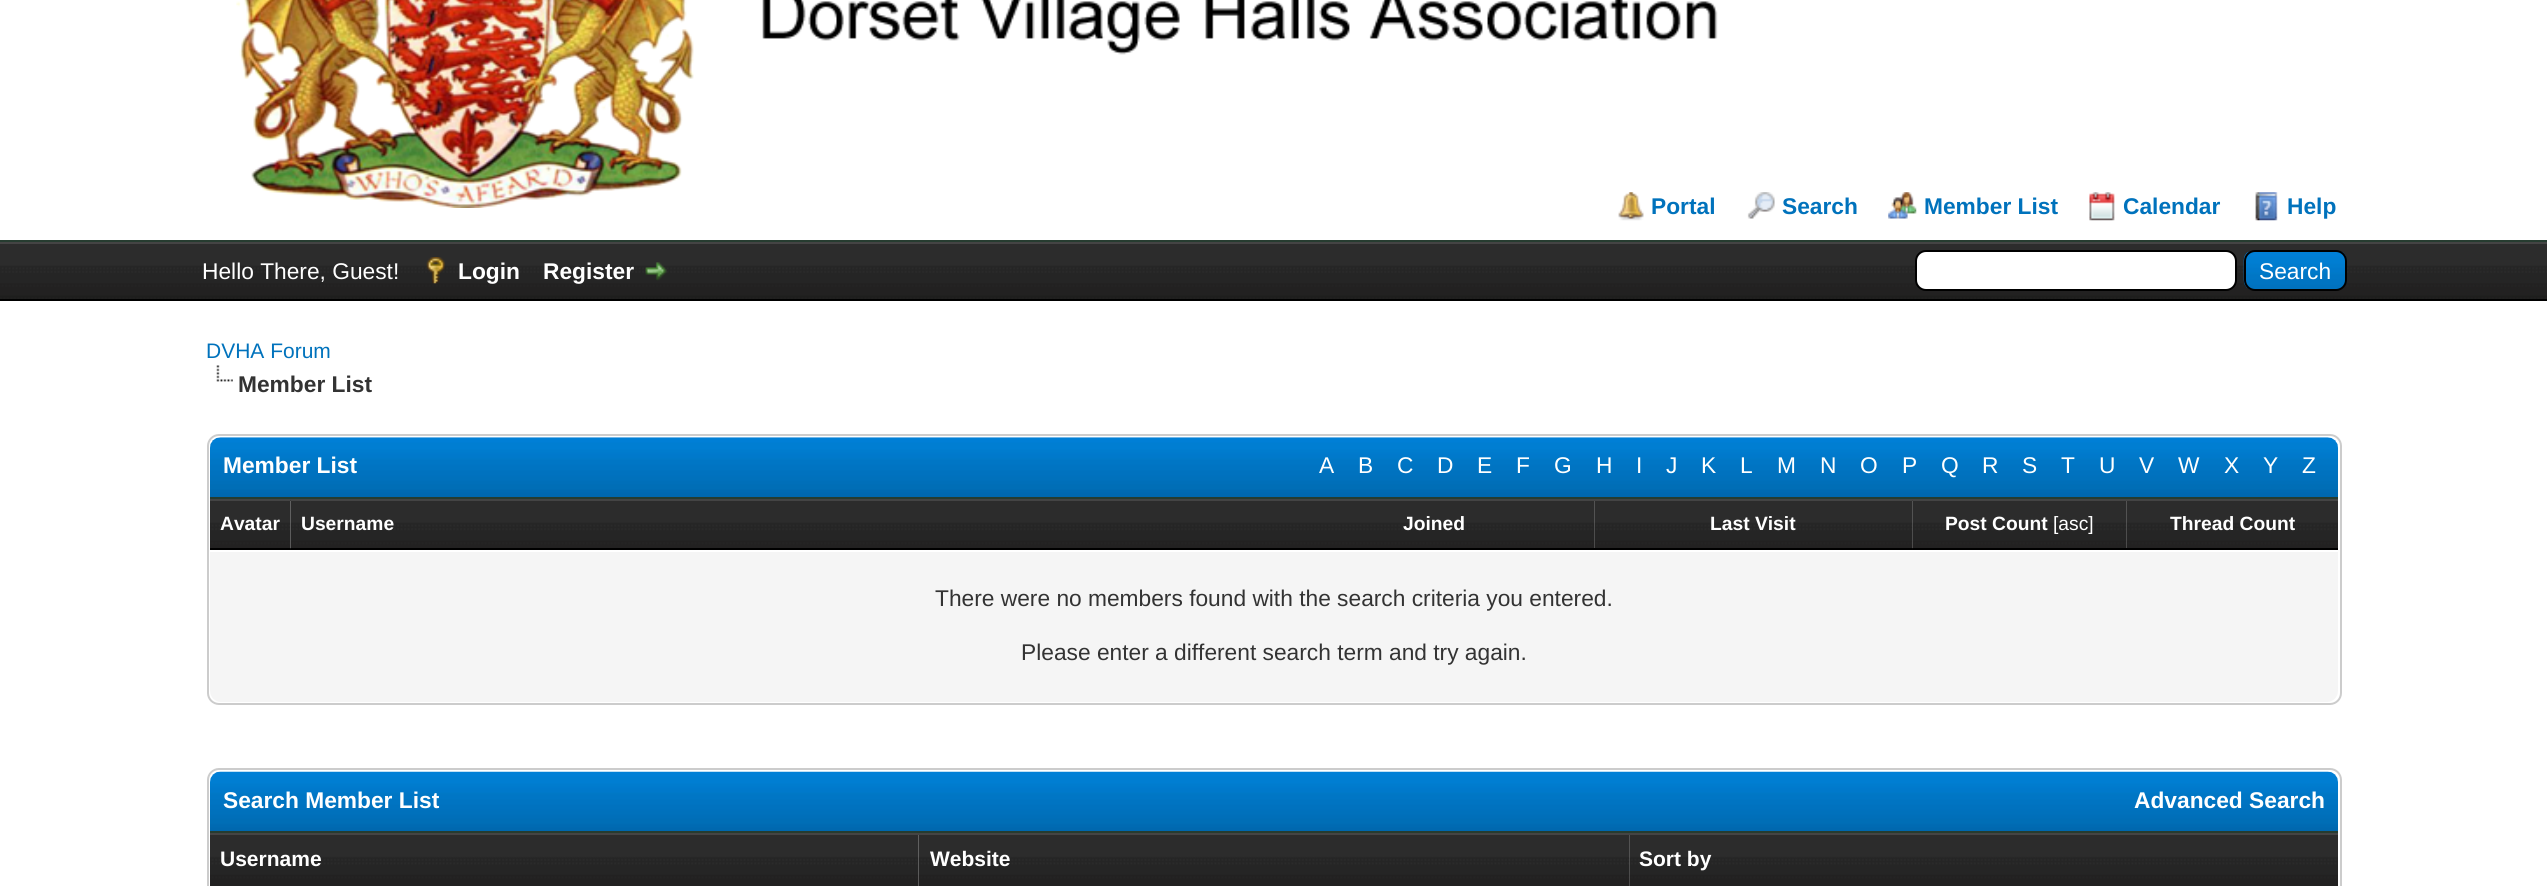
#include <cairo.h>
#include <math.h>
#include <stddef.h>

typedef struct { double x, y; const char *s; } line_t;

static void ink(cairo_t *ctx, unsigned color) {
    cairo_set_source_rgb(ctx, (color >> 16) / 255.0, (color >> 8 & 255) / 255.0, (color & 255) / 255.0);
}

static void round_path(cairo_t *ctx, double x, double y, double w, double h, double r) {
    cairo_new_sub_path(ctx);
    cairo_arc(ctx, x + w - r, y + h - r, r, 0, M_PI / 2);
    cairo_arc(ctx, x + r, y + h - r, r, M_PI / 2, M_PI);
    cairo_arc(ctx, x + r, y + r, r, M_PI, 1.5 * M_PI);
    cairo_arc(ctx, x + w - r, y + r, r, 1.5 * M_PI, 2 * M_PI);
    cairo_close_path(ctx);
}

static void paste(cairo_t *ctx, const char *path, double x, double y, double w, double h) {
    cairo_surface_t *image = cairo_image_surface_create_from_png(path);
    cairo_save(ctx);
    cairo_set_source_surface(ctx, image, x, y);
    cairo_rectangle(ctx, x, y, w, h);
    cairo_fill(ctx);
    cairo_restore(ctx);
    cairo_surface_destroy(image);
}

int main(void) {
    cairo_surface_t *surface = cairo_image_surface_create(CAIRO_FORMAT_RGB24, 2547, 886);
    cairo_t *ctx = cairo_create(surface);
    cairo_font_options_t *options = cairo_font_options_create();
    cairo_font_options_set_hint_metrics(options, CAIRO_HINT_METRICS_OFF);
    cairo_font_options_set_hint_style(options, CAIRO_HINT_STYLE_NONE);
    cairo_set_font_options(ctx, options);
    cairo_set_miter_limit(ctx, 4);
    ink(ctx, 0xFFFFFF);
    cairo_paint(ctx);
    ink(ctx, 0x263C30);
    cairo_rectangle(ctx, 0, 240, 2547, 2);
    cairo_fill(ctx);
    paste(ctx, "media/1.png", 236, 0, 1482, 208);
    paste(ctx, "media/2.png", 1618, 192, 26, 29);
    cairo_select_font_face(ctx, "Liberation Sans", CAIRO_FONT_SLANT_NORMAL, CAIRO_FONT_WEIGHT_BOLD);
    cairo_set_font_size(ctx, 22.75);
    ink(ctx, 0x0072BC);
    cairo_move_to(ctx, 1651, 214);
    cairo_show_text(ctx, "Portal");
    paste(ctx, "media/3.png", 1747, 192, 28, 27);
    cairo_move_to(ctx, 1782, 214);
    cairo_show_text(ctx, "Search");
    paste(ctx, "media/4.png", 1888, 192, 29, 27);
    cairo_move_to(ctx, 1924, 214);
    cairo_show_text(ctx, "Member List");
    paste(ctx, "media/5.png", 2089, 192, 26, 29);
    cairo_move_to(ctx, 2123, 214);
    cairo_show_text(ctx, "Calendar");
    paste(ctx, "media/6.png", 2255, 192, 23, 29);
    cairo_move_to(ctx, 2287, 214);
    cairo_show_text(ctx, "Help");
    paste(ctx, "media/7.png", 0, 244, 2547, 55);
    ink(ctx, 0x444444);
    cairo_rectangle(ctx, 0, 242, 2547, 2);
    cairo_fill(ctx);
    ink(ctx, 0x000000);
    cairo_rectangle(ctx, 0, 299, 2547, 2);
    cairo_fill(ctx);
    cairo_select_font_face(ctx, "Liberation Sans", CAIRO_FONT_SLANT_NORMAL, CAIRO_FONT_WEIGHT_NORMAL);
    ink(ctx, 0xFFFFFF);
    cairo_move_to(ctx, 202, 279);
    cairo_show_text(ctx, "Hello There, Guest!");
    paste(ctx, "media/8.png", 426, 257, 19, 27);
    cairo_select_font_face(ctx, "Liberation Sans", CAIRO_FONT_SLANT_NORMAL, CAIRO_FONT_WEIGHT_BOLD);
    cairo_move_to(ctx, 458, 279);
    cairo_show_text(ctx, "Login");
    cairo_move_to(ctx, 543, 279);
    cairo_show_text(ctx, "Register");
    paste(ctx, "media/9.png", 645, 262, 22, 19);
    round_path(ctx, 1916, 251, 320, 39, 10);
    cairo_fill_preserve(ctx);
    ink(ctx, 0x000000);
    cairo_stroke(ctx);
    paste(ctx, "media/10.png", 2243, 251, 104, 39);
    round_path(ctx, 2245, 251, 101, 39, 10);
    cairo_stroke(ctx);
    cairo_select_font_face(ctx, "Liberation Sans", CAIRO_FONT_SLANT_NORMAL, CAIRO_FONT_WEIGHT_NORMAL);
    ink(ctx, 0xFFFFFF);
    cairo_move_to(ctx, 2259, 279);
    cairo_show_text(ctx, "Search");
    cairo_set_font_size(ctx, 21);
    ink(ctx, 0x0072BC);
    cairo_move_to(ctx, 206, 358);
    cairo_show_text(ctx, "DVHA Forum");
    paste(ctx, "media/11.png", 216, 365, 17, 17);
    cairo_select_font_face(ctx, "Liberation Sans", CAIRO_FONT_SLANT_NORMAL, CAIRO_FONT_WEIGHT_BOLD);
    cairo_set_font_size(ctx, 22.75);
    ink(ctx, 0x333333);
    cairo_move_to(ctx, 238, 392);
    cairo_show_text(ctx, "Member List");
    round_path(ctx, 208, 435, 2133, 269, 11);
    ink(ctx, 0xCCCCCC);
    cairo_stroke(ctx);
    paste(ctx, "media/12.png", 210, 437, 2128, 60);
    ink(ctx, 0x263C30);
    cairo_rectangle(ctx, 210, 497, 2128, 2);
    cairo_fill(ctx);
    ink(ctx, 0xFFFFFF);
    cairo_move_to(ctx, 223, 473);
    cairo_show_text(ctx, "Member List");
    cairo_select_font_face(ctx, "Liberation Sans", CAIRO_FONT_SLANT_NORMAL, CAIRO_FONT_WEIGHT_NORMAL);
    {
        static const line_t items[] = {
            {1319, 473, "A"},
            {1358, 473, "B"},
            {1397, 473, "C"},
            {1437, 473, "D"},
            {1477, 473, "E"},
            {1516, 473, "F"},
            {1554, 473, "G"},
            {1596, 473, "H"},
            {1636, 473, "I"},
            {1666, 473, "J"},
            {1701, 473, "K"},
            {1740, 473, "L"},
            {1777, 473, "M"},
            {1820, 473, "N"},
            {1860, 473, "O"},
            {1902, 473, "P"},
            {1941, 473, "Q"},
            {1982, 473, "R"},
            {2022, 473, "S"},
            {2061, 473, "T"},
            {2099, 473, "U"},
            {2139, 473, "V"},
            {2178, 473, "W"},
            {2224, 473, "X"},
            {2263, 473, "Y"},
            {2302, 473, "Z"},
        };
        for (size_t i = 0; i < sizeof items / sizeof *items; i++) {
            cairo_move_to(ctx, items[i].x, items[i].y);
            cairo_show_text(ctx, items[i].s);
        }
    }
    paste(ctx, "media/13.png", 210, 501, 81, 47);
    ink(ctx, 0x444444);
    cairo_rectangle(ctx, 210, 499, 81, 2);
    cairo_fill(ctx);
    ink(ctx, 0x000000);
    cairo_rectangle(ctx, 210, 548, 81, 2);
    cairo_fill(ctx);
    cairo_select_font_face(ctx, "Liberation Sans", CAIRO_FONT_SLANT_NORMAL, CAIRO_FONT_WEIGHT_BOLD);
    cairo_set_font_size(ctx, 19.25);
    ink(ctx, 0xFFFFFF);
    cairo_move_to(ctx, 220, 530);
    cairo_show_text(ctx, "Avatar");
    paste(ctx, "media/14.png", 290, 500, 984, 50);
    ink(ctx, 0x444444);
    cairo_rectangle(ctx, 291, 499, 1622, 2);
    cairo_fill(ctx);
    ink(ctx, 0x000000);
    cairo_rectangle(ctx, 291, 548, 1622, 2);
    cairo_fill(ctx);
    ink(ctx, 0xFFFFFF);
    cairo_move_to(ctx, 301, 530);
    cairo_show_text(ctx, "Username");
    paste(ctx, "media/15.png", 1274, 501, 321, 47);
    cairo_move_to(ctx, 1403, 530);
    cairo_show_text(ctx, "Joined");
    paste(ctx, "media/16.png", 1594, 501, 319, 47);
    cairo_move_to(ctx, 1710, 530);
    cairo_show_text(ctx, "Last Visit");
    paste(ctx, "media/17.png", 1912, 500, 215, 50);
    ink(ctx, 0x444444);
    cairo_rectangle(ctx, 1913, 499, 425, 2);
    cairo_fill(ctx);
    ink(ctx, 0x000000);
    cairo_rectangle(ctx, 1913, 548, 425, 2);
    cairo_fill(ctx);
    ink(ctx, 0xFFFFFF);
    cairo_move_to(ctx, 1945, 530);
    cairo_show_text(ctx, "Post Count");
    cairo_select_font_face(ctx, "Liberation Sans", CAIRO_FONT_SLANT_NORMAL, CAIRO_FONT_WEIGHT_NORMAL);
    cairo_move_to(ctx, 2053, 530);
    cairo_show_text(ctx, "[asc]");
    paste(ctx, "media/18.png", 2126, 501, 212, 47);
    cairo_select_font_face(ctx, "Liberation Sans", CAIRO_FONT_SLANT_NORMAL, CAIRO_FONT_WEIGHT_BOLD);
    cairo_move_to(ctx, 2170, 530);
    cairo_show_text(ctx, "Thread Count");
    ink(ctx, 0xF5F5F5);
    cairo_new_path(ctx);
    cairo_move_to(ctx, 210, 550);
    cairo_line_to(ctx, 2338, 550);
    cairo_line_to(ctx, 2338, 691);
    cairo_curve_to(ctx, 2338, 697, 2333, 702, 2327, 702);
    cairo_line_to(ctx, 221, 702);
    cairo_curve_to(ctx, 215, 702, 210, 697, 210, 691);
    cairo_close_path(ctx);
    cairo_fill(ctx);
    ink(ctx, 0xFFFFFF);
    cairo_rectangle(ctx, 210, 550, 2128, 2);
    cairo_fill(ctx);
    cairo_select_font_face(ctx, "Liberation Sans", CAIRO_FONT_SLANT_NORMAL, CAIRO_FONT_WEIGHT_NORMAL);
    cairo_set_font_size(ctx, 22.75);
    ink(ctx, 0x333333);
    cairo_move_to(ctx, 935, 606);
    cairo_show_text(ctx, "There were no members found with the search criteria you entered.");
    cairo_move_to(ctx, 1021, 660);
    cairo_show_text(ctx, "Please enter a different search term and try again.");
    round_path(ctx, 208, 769, 2133, 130, 11);
    ink(ctx, 0xCCCCCC);
    cairo_stroke(ctx);
    paste(ctx, "media/19.png", 210, 771, 2128, 60);
    ink(ctx, 0x263C30);
    cairo_rectangle(ctx, 210, 831, 2128, 2);
    cairo_fill(ctx);
    cairo_select_font_face(ctx, "Liberation Sans", CAIRO_FONT_SLANT_NORMAL, CAIRO_FONT_WEIGHT_BOLD);
    ink(ctx, 0xFFFFFF);
    cairo_move_to(ctx, 223, 808);
    cairo_show_text(ctx, "Search Member List");
    cairo_move_to(ctx, 2134, 808);
    cairo_show_text(ctx, "Advanced Search");
    paste(ctx, "media/20.png", 210, 835, 709, 51);
    ink(ctx, 0x444444);
    cairo_rectangle(ctx, 210, 833, 2128, 2);
    cairo_fill(ctx);
    cairo_set_font_size(ctx, 21);
    ink(ctx, 0xFFFFFF);
    cairo_move_to(ctx, 220, 866);
    cairo_show_text(ctx, "Username");
    paste(ctx, "media/21.png", 919, 835, 711, 51);
    cairo_move_to(ctx, 930, 866);
    cairo_show_text(ctx, "Website");
    paste(ctx, "media/22.png", 1629, 835, 709, 51);
    cairo_move_to(ctx, 1639, 866);
    cairo_show_text(ctx, "Sort by");
    cairo_surface_write_to_png(surface, "image.png");
    cairo_font_options_destroy(options);
    cairo_destroy(ctx);
    cairo_surface_destroy(surface);
    return 0;
}
